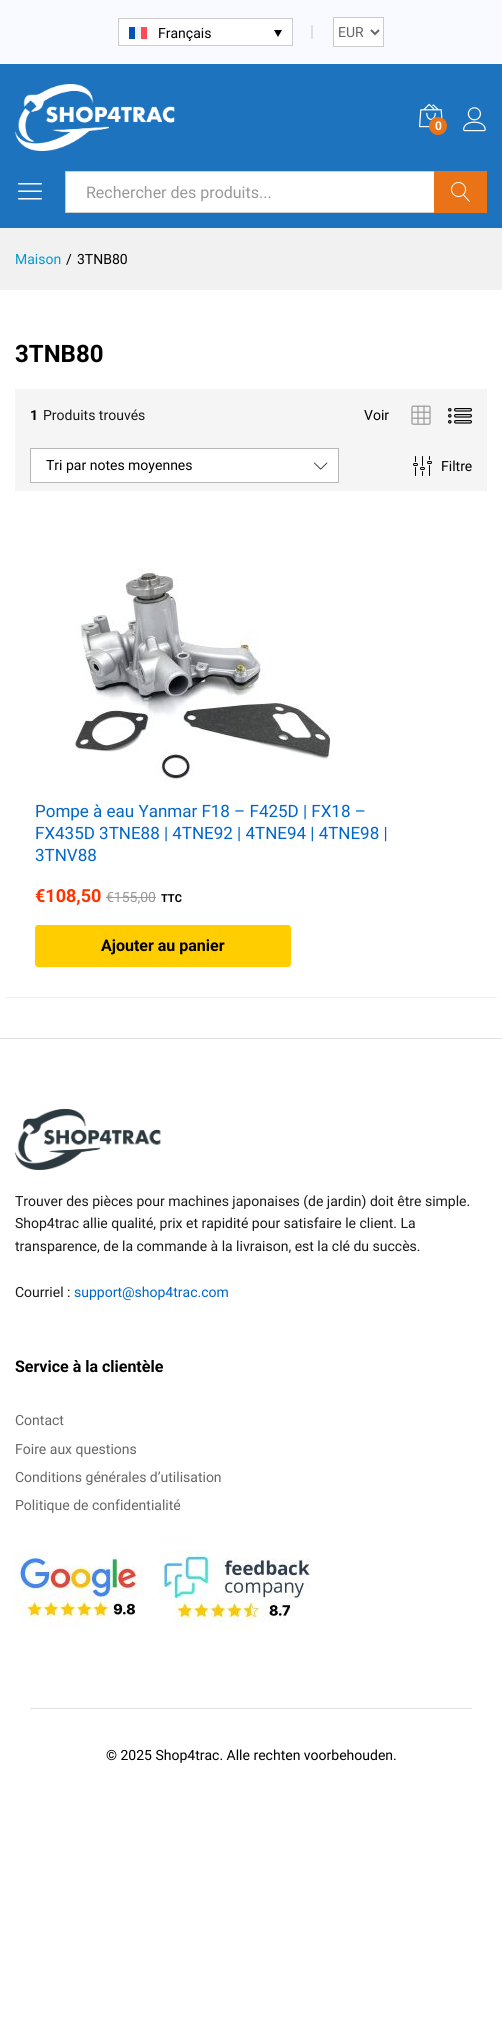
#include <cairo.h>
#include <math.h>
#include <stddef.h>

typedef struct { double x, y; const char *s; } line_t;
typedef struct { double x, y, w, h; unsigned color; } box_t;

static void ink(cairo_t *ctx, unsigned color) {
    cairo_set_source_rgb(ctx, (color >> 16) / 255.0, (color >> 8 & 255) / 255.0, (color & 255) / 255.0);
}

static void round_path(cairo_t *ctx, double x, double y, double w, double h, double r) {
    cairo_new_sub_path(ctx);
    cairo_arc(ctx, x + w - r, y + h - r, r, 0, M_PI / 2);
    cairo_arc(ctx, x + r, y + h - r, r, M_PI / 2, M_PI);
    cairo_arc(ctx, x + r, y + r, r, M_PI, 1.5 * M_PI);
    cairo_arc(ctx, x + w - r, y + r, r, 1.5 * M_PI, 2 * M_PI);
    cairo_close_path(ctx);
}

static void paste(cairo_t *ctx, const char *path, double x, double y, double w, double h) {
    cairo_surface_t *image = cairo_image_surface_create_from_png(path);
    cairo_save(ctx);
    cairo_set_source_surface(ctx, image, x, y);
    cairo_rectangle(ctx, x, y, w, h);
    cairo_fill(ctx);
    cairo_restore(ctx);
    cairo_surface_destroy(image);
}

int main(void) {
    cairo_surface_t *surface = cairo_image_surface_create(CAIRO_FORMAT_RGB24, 502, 2033);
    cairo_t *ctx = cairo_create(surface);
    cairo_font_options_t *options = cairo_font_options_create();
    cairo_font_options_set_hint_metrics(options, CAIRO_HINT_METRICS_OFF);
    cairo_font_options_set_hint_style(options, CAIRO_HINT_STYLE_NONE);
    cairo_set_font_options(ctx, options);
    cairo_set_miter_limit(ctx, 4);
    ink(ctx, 0xFFFFFF);
    cairo_paint(ctx);
    ink(ctx, 0xF8FAFF);
    cairo_rectangle(ctx, 0, 0, 502, 64);
    cairo_fill(ctx);
    ink(ctx, 0xFFFFFF);
    cairo_rectangle(ctx, 118.5, 18.5, 174, 27);
    cairo_fill_preserve(ctx);
    ink(ctx, 0xCDCDCD);
    cairo_set_line_width(ctx, 1);
    cairo_stroke(ctx);
    {
        static const box_t items[] = {
            {129, 27, 6, 12, 0x0052B4},
            {135, 27, 6, 12, 0xF0F0F0},
            {141, 27, 6, 12, 0xFF4B55},
        };
        for (size_t i = 0; i < sizeof items / sizeof *items; i++) {
            ink(ctx, items[i].color);
            cairo_rectangle(ctx, items[i].x, items[i].y, items[i].w, items[i].h);
            cairo_fill(ctx);
        }
    }
    cairo_select_font_face(ctx, "Roboto", CAIRO_FONT_SLANT_NORMAL, CAIRO_FONT_WEIGHT_NORMAL);
    cairo_set_font_size(ctx, 14);
    ink(ctx, 0x000000);
    cairo_move_to(ctx, 158, 38);
    cairo_show_text(ctx, "Français");
    cairo_new_path(ctx);
    cairo_move_to(ctx, 274, 30);
    cairo_line_to(ctx, 282, 30);
    cairo_line_to(ctx, 278, 37);
    cairo_close_path(ctx);
    cairo_fill(ctx);
    ink(ctx, 0xE1E1E1);
    cairo_rectangle(ctx, 311, 25, 2, 14);
    cairo_fill(ctx);
    ink(ctx, 0xFFFFFF);
    cairo_rectangle(ctx, 333.5, 17.5, 50, 29);
    cairo_fill_preserve(ctx);
    ink(ctx, 0xCCCCCC);
    cairo_stroke(ctx);
    cairo_new_path(ctx);
    cairo_move_to(ctx, 371, 30);
    cairo_line_to(ctx, 375, 34);
    cairo_line_to(ctx, 379, 30);
    ink(ctx, 0x666666);
    cairo_set_line_width(ctx, 2);
    cairo_stroke(ctx);
    cairo_move_to(ctx, 338, 37);
    cairo_show_text(ctx, "EUR");
    ink(ctx, 0x1E73BE);
    cairo_rectangle(ctx, 0, 64, 502, 164);
    cairo_fill(ctx);
    paste(ctx, "media/1.png", 15, 84, 160, 67);
    paste(ctx, "media/2.png", 419, 103, 24, 25);
    ink(ctx, 0xEA7317);
    cairo_arc(ctx, 438, 126, 9, 0, 2 * M_PI);
    cairo_fill(ctx);
    cairo_select_font_face(ctx, "Roboto", CAIRO_FONT_SLANT_NORMAL, CAIRO_FONT_WEIGHT_BOLD);
    cairo_set_font_size(ctx, 12);
    ink(ctx, 0xFFFFFF);
    cairo_move_to(ctx, 435, 130);
    cairo_show_text(ctx, "0");
    paste(ctx, "media/3.png", 463, 107, 23, 25);
    paste(ctx, "media/4.png", 18, 183, 24, 17);
    {
        static const box_t items[] = {
            {66, 172, 368, 40, 0xFFFFFF},
            {65, 171, 369, 1, 0xCCCCCC},
            {65, 212, 369, 1, 0xCCCCCC},
            {65, 171, 1, 42, 0xCCCCCC},
        };
        for (size_t i = 0; i < sizeof items / sizeof *items; i++) {
            ink(ctx, items[i].color);
            cairo_rectangle(ctx, items[i].x, items[i].y, items[i].w, items[i].h);
            cairo_fill(ctx);
        }
    }
    cairo_select_font_face(ctx, "Roboto", CAIRO_FONT_SLANT_NORMAL, CAIRO_FONT_WEIGHT_NORMAL);
    cairo_set_font_size(ctx, 16);
    ink(ctx, 0x999999);
    cairo_move_to(ctx, 86, 198);
    cairo_show_text(ctx, "Rechercher des produits...");
    ink(ctx, 0xEA7317);
    cairo_rectangle(ctx, 434, 171, 53, 42);
    cairo_fill(ctx);
    paste(ctx, "media/5.png", 451, 182, 19, 20);
    ink(ctx, 0xF1F1F1);
    cairo_rectangle(ctx, 0, 228, 502, 62);
    cairo_fill(ctx);
    cairo_set_font_size(ctx, 14);
    ink(ctx, 0x0099CC);
    cairo_move_to(ctx, 15, 264);
    cairo_show_text(ctx, "Maison");
    ink(ctx, 0x000000);
    cairo_move_to(ctx, 66, 264);
    cairo_show_text(ctx, "/");
    cairo_move_to(ctx, 77, 264);
    cairo_show_text(ctx, "3TNB80");
    cairo_select_font_face(ctx, "Roboto", CAIRO_FONT_SLANT_NORMAL, CAIRO_FONT_WEIGHT_BOLD);
    cairo_set_font_size(ctx, 24);
    cairo_move_to(ctx, 15, 362);
    cairo_show_text(ctx, "3TNB80");
    ink(ctx, 0xF5F5F5);
    cairo_rectangle(ctx, 15, 389, 472, 102);
    cairo_fill(ctx);
    cairo_set_font_size(ctx, 14);
    ink(ctx, 0x000000);
    cairo_move_to(ctx, 30, 420);
    cairo_show_text(ctx, "1");
    cairo_select_font_face(ctx, "Roboto", CAIRO_FONT_SLANT_NORMAL, CAIRO_FONT_WEIGHT_NORMAL);
    ink(ctx, 0x1A1A1A);
    cairo_move_to(ctx, 43, 420);
    cairo_show_text(ctx, "Produits trouvés");
    ink(ctx, 0x000000);
    cairo_move_to(ctx, 364, 420);
    cairo_show_text(ctx, "Voir");
    paste(ctx, "media/6.png", 411, 405, 20, 20);
    paste(ctx, "media/7.png", 448, 408, 24, 16);
    ink(ctx, 0xFFFFFF);
    cairo_rectangle(ctx, 30.5, 448.5, 308, 34);
    cairo_fill_preserve(ctx);
    ink(ctx, 0xB8B8B8);
    cairo_set_line_width(ctx, 1);
    cairo_stroke(ctx);
    ink(ctx, 0x000000);
    cairo_move_to(ctx, 46, 470);
    cairo_show_text(ctx, "Tri par notes moyennes");
    paste(ctx, "media/8.png", 314, 462, 14, 8);
    paste(ctx, "media/9.png", 413, 456, 19, 20);
    cairo_move_to(ctx, 441, 471);
    cairo_show_text(ctx, "Filtre");
    ink(ctx, 0xF0F0F0);
    cairo_rectangle(ctx, 5, 997, 492, 1);
    cairo_fill(ctx);
    paste(ctx, "media/10.png", 75, 567, 256, 214);
    cairo_set_font_size(ctx, 17);
    ink(ctx, 0x0066CC);
    {
        static const line_t items[] = {
            {35, 817, "Pompe à eau Yanmar F18 – F425D | FX18 –"},
            {35, 839, "FX435D 3TNE88 | 4TNE92 | 4TNE94 | 4TNE98 |"},
            {35, 861, "3TNV88"},
        };
        for (size_t i = 0; i < sizeof items / sizeof *items; i++) {
            cairo_move_to(ctx, items[i].x, items[i].y);
            cairo_show_text(ctx, items[i].s);
        }
    }
    cairo_select_font_face(ctx, "Roboto", CAIRO_FONT_SLANT_NORMAL, CAIRO_FONT_WEIGHT_BOLD);
    cairo_set_font_size(ctx, 18);
    ink(ctx, 0xFF3300);
    cairo_move_to(ctx, 35, 902);
    cairo_show_text(ctx, "€108,50");
    cairo_select_font_face(ctx, "Roboto", CAIRO_FONT_SLANT_NORMAL, CAIRO_FONT_WEIGHT_NORMAL);
    cairo_set_font_size(ctx, 14);
    ink(ctx, 0x999999);
    cairo_move_to(ctx, 106, 902);
    cairo_show_text(ctx, "€155,00");
    cairo_rectangle(ctx, 106, 897, 50, 1);
    cairo_fill(ctx);
    cairo_select_font_face(ctx, "Roboto", CAIRO_FONT_SLANT_NORMAL, CAIRO_FONT_WEIGHT_BOLD);
    cairo_set_font_size(ctx, 11);
    ink(ctx, 0x000000);
    cairo_move_to(ctx, 161, 902);
    cairo_show_text(ctx, "TTC");
    ink(ctx, 0xFFCD00);
    round_path(ctx, 35, 925, 256, 42, 3);
    cairo_fill(ctx);
    cairo_set_font_size(ctx, 16);
    ink(ctx, 0x000000);
    cairo_move_to(ctx, 101, 951);
    cairo_show_text(ctx, "Ajouter au panier");
    ink(ctx, 0xE1E1E1);
    cairo_rectangle(ctx, 0, 1038, 502, 1);
    cairo_fill(ctx);
    paste(ctx, "media/11.png", 15, 1109, 146, 61);
    cairo_select_font_face(ctx, "Roboto", CAIRO_FONT_SLANT_NORMAL, CAIRO_FONT_WEIGHT_NORMAL);
    cairo_set_font_size(ctx, 14);
    ink(ctx, 0x1A1A1A);
    {
        static const line_t items[] = {
            {15, 1206, "Trouver des pièces pour machines japonaises (de jardin) doit être simple."},
            {15, 1228, "Shop4trac allie qualité, prix et rapidité pour satisfaire le client. La"},
            {15, 1251, "transparence, de la commande à la livraison, est la clé du succès."},
            {15, 1297, "Courriel :"},
        };
        for (size_t i = 0; i < sizeof items / sizeof *items; i++) {
            cairo_move_to(ctx, items[i].x, items[i].y);
            cairo_show_text(ctx, items[i].s);
        }
    }
    ink(ctx, 0x0066CC);
    cairo_move_to(ctx, 74, 1297);
    cairo_show_text(ctx, "support@shop4trac.com");
    cairo_select_font_face(ctx, "Roboto", CAIRO_FONT_SLANT_NORMAL, CAIRO_FONT_WEIGHT_BOLD);
    cairo_set_font_size(ctx, 16);
    ink(ctx, 0x000000);
    cairo_move_to(ctx, 15, 1372);
    cairo_show_text(ctx, "Service à la clientèle");
    cairo_select_font_face(ctx, "Roboto", CAIRO_FONT_SLANT_NORMAL, CAIRO_FONT_WEIGHT_NORMAL);
    cairo_set_font_size(ctx, 14);
    ink(ctx, 0x666666);
    {
        static const line_t items[] = {
            {15, 1425, "Contact"},
            {15, 1454, "Foire aux questions"},
            {15, 1482, "Conditions générales d’utilisation"},
            {15, 1510, "Politique de confidentialité"},
        };
        for (size_t i = 0; i < sizeof items / sizeof *items; i++) {
            cairo_move_to(ctx, items[i].x, items[i].y);
            cairo_show_text(ctx, items[i].s);
        }
    }
    paste(ctx, "media/12.png", 15, 1550, 296, 79);
    ink(ctx, 0xE1E1E1);
    cairo_rectangle(ctx, 30, 1708, 442, 1);
    cairo_fill(ctx);
    ink(ctx, 0x000000);
    cairo_move_to(ctx, 106, 1760);
    cairo_show_text(ctx, "© 2025 Shop4trac. Alle rechten voorbehouden.");
    cairo_surface_write_to_png(surface, "image.png");
    cairo_font_options_destroy(options);
    cairo_destroy(ctx);
    cairo_surface_destroy(surface);
    return 0;
}
